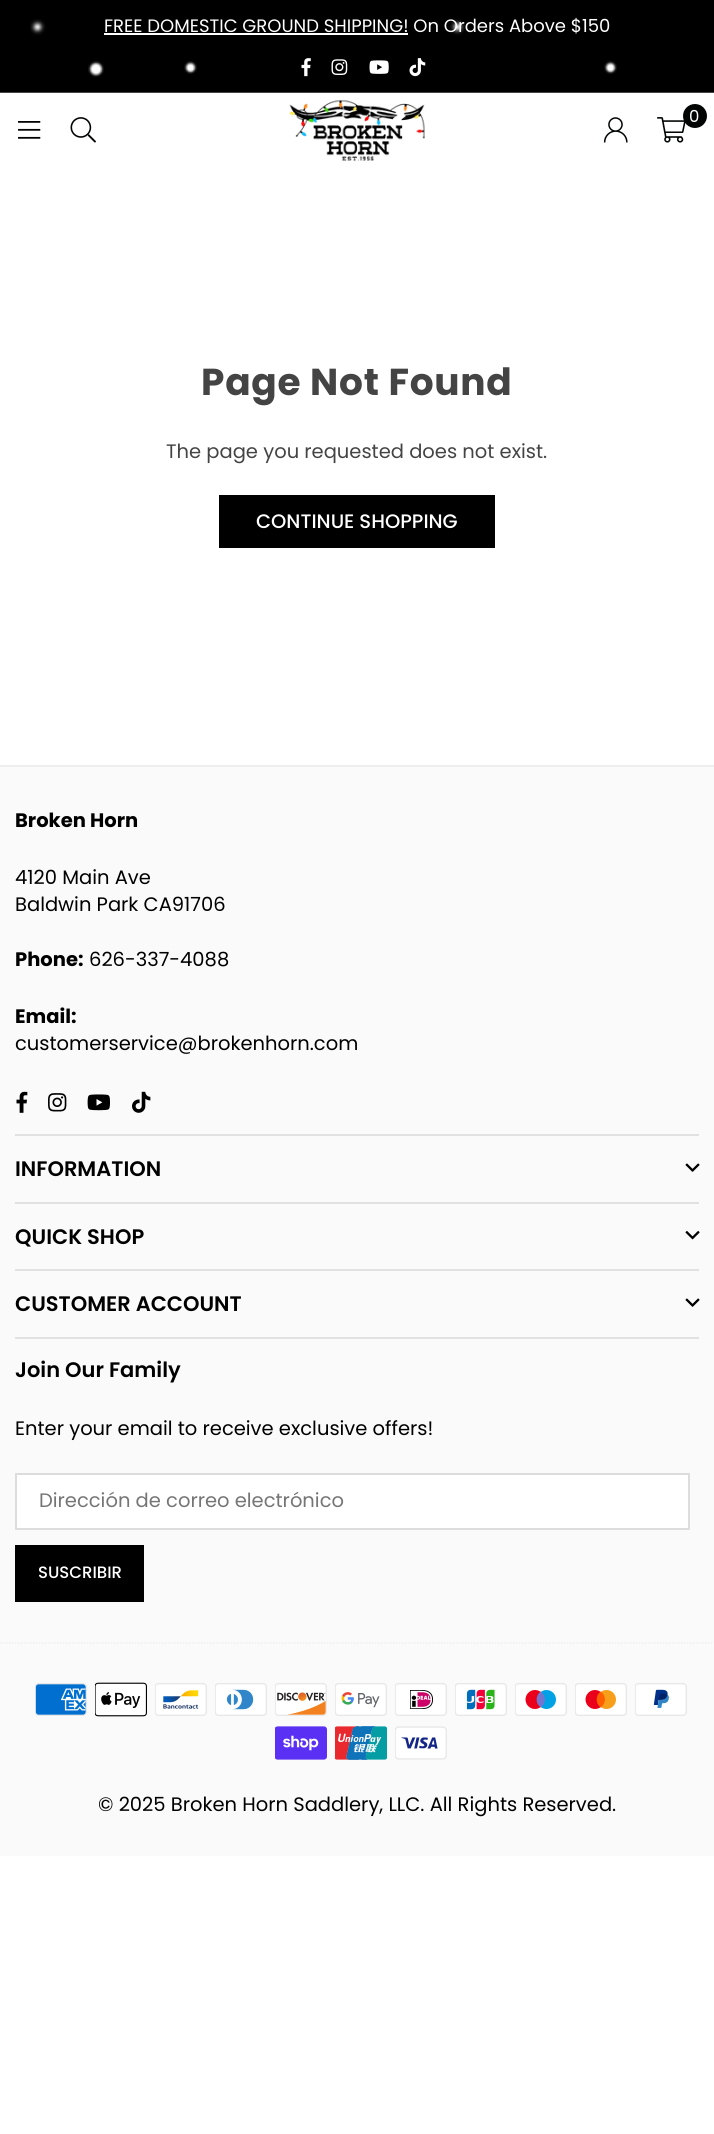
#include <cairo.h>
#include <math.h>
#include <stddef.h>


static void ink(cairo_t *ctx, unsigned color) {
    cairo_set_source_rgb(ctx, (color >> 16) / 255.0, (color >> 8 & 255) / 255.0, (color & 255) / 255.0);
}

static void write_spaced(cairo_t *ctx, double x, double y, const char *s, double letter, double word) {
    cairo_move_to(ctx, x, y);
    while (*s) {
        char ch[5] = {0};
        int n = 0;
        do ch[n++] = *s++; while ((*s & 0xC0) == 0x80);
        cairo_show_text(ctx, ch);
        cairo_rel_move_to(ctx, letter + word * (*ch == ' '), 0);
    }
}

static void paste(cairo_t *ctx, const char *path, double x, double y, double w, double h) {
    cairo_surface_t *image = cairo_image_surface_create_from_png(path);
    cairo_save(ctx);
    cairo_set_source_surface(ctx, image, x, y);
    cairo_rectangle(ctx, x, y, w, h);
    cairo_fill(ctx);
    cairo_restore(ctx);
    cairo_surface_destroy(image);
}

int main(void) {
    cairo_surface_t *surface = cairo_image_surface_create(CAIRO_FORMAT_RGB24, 714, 2134);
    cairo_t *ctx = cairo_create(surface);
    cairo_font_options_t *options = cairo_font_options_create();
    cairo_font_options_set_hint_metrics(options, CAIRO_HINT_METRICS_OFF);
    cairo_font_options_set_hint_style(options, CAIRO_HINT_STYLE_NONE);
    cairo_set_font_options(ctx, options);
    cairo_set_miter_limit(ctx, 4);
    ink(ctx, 0xFFFFFF);
    cairo_paint(ctx);
    ink(ctx, 0x000000);
    cairo_rectangle(ctx, 0, 0, 714, 92);
    cairo_fill(ctx);
    ink(ctx, 0x444444);
    cairo_rectangle(ctx, 0, 92, 714, 1);
    cairo_fill(ctx);
    paste(ctx, "media/5.png", 30, 19, 587, 58);
    ink(ctx, 0xFFFFFF);
    cairo_rectangle(ctx, 104, 33, 304, 2);
    cairo_fill(ctx);
    cairo_select_font_face(ctx, "Poppins", CAIRO_FONT_SLANT_NORMAL, CAIRO_FONT_WEIGHT_NORMAL);
    cairo_set_font_size(ctx, 18);
    cairo_move_to(ctx, 104, 32);
    cairo_show_text(ctx, "FREE DOMESTIC GROUND SHIPPING! On Orders Above $150");
    paste(ctx, "media/1.png", 301, 58, 10, 19);
    paste(ctx, "media/2.png", 331, 59, 17, 16);
    paste(ctx, "media/3.png", 369, 60, 20, 14);
    paste(ctx, "media/4.png", 409, 58, 17, 19);
    paste(ctx, "media/6.png", 289, 100, 136, 61);
    paste(ctx, "media/7.png", 657, 117, 29, 26);
    ink(ctx, 0x030505);
    cairo_arc(ctx, 695, 116, 12, 0, 2 * M_PI);
    cairo_fill(ctx);
    cairo_set_font_size(ctx, 16.5);
    ink(ctx, 0xFFFFFF);
    cairo_move_to(ctx, 689, 122);
    cairo_show_text(ctx, "0");
    paste(ctx, "media/8.png", 603, 117, 25, 26);
    paste(ctx, "media/9.png", 18, 121, 23, 18);
    paste(ctx, "media/10.png", 70, 117, 26, 26);
    cairo_select_font_face(ctx, "Poppins", CAIRO_FONT_SLANT_NORMAL, CAIRO_FONT_WEIGHT_BOLD);
    cairo_set_font_size(ctx, 37.5);
    ink(ctx, 0x444444);
    write_spaced(ctx, 201, 395, "Page Not Found", 0.75, 0);
    cairo_select_font_face(ctx, "Poppins", CAIRO_FONT_SLANT_NORMAL, CAIRO_FONT_WEIGHT_NORMAL);
    cairo_set_font_size(ctx, 19.5);
    cairo_move_to(ctx, 166, 458);
    cairo_show_text(ctx, "The page you requested does not exist.");
    ink(ctx, 0x000000);
    cairo_rectangle(ctx, 219, 495, 276, 53);
    cairo_fill(ctx);
    cairo_select_font_face(ctx, "Poppins Medium", CAIRO_FONT_SLANT_NORMAL, CAIRO_FONT_WEIGHT_NORMAL);
    ink(ctx, 0xFFFFFF);
    cairo_move_to(ctx, 256, 528);
    cairo_show_text(ctx, "CONTINUE SHOPPING");
    ink(ctx, 0xFAFAFA);
    cairo_rectangle(ctx, 0, 767, 714, 1089);
    cairo_fill(ctx);
    ink(ctx, 0xEEEEEE);
    cairo_rectangle(ctx, 0, 765, 714, 2);
    cairo_fill(ctx);
    cairo_select_font_face(ctx, "Poppins", CAIRO_FONT_SLANT_NORMAL, CAIRO_FONT_WEIGHT_BOLD);
    ink(ctx, 0x000000);
    cairo_move_to(ctx, 15, 827);
    cairo_show_text(ctx, "Broken Horn");
    cairo_select_font_face(ctx, "Poppins", CAIRO_FONT_SLANT_NORMAL, CAIRO_FONT_WEIGHT_NORMAL);
    cairo_move_to(ctx, 15, 884);
    cairo_show_text(ctx, "4120 Main Ave");
    cairo_move_to(ctx, 15, 911);
    cairo_show_text(ctx, "Baldwin Park CA91706");
    cairo_select_font_face(ctx, "Poppins", CAIRO_FONT_SLANT_NORMAL, CAIRO_FONT_WEIGHT_BOLD);
    cairo_move_to(ctx, 15, 966);
    cairo_show_text(ctx, "Phone:");
    cairo_select_font_face(ctx, "Poppins", CAIRO_FONT_SLANT_NORMAL, CAIRO_FONT_WEIGHT_NORMAL);
    cairo_move_to(ctx, 89, 966);
    cairo_show_text(ctx, "626-337-4088");
    cairo_select_font_face(ctx, "Poppins", CAIRO_FONT_SLANT_NORMAL, CAIRO_FONT_WEIGHT_BOLD);
    cairo_move_to(ctx, 15, 1023);
    cairo_show_text(ctx, "Email:");
    cairo_select_font_face(ctx, "Poppins", CAIRO_FONT_SLANT_NORMAL, CAIRO_FONT_WEIGHT_NORMAL);
    cairo_move_to(ctx, 15, 1050);
    cairo_show_text(ctx, "customerservice@brokenhorn.com");
    paste(ctx, "media/11.png", 16, 1091, 12, 22);
    paste(ctx, "media/12.png", 48, 1093, 19, 19);
    paste(ctx, "media/13.png", 87, 1094, 23, 17);
    paste(ctx, "media/14.png", 132, 1091, 19, 22);
    ink(ctx, 0xE1E1E1);
    cairo_rectangle(ctx, 15, 1134, 684, 2);
    cairo_fill(ctx);
    cairo_select_font_face(ctx, "Poppins SemiBold", CAIRO_FONT_SLANT_NORMAL, CAIRO_FONT_WEIGHT_NORMAL);
    cairo_set_font_size(ctx, 21);
    ink(ctx, 0x000000);
    cairo_move_to(ctx, 15, 1176);
    cairo_show_text(ctx, "INFORMATION");
    paste(ctx, "media/15.png", 685, 1163, 15, 9);
    ink(ctx, 0xE1E1E1);
    cairo_rectangle(ctx, 15, 1202, 684, 2);
    cairo_fill(ctx);
    ink(ctx, 0x000000);
    cairo_move_to(ctx, 15, 1244);
    cairo_show_text(ctx, "QUICK SHOP");
    paste(ctx, "media/16.png", 685, 1231, 15, 9);
    ink(ctx, 0xE1E1E1);
    cairo_rectangle(ctx, 15, 1269, 684, 2);
    cairo_fill(ctx);
    ink(ctx, 0x000000);
    cairo_move_to(ctx, 15, 1311);
    cairo_show_text(ctx, "CUSTOMER ACCOUNT");
    paste(ctx, "media/15.png", 685, 1298, 15, 9);
    ink(ctx, 0xE1E1E1);
    cairo_rectangle(ctx, 15, 1337, 684, 2);
    cairo_fill(ctx);
    ink(ctx, 0x000000);
    cairo_move_to(ctx, 15, 1377);
    cairo_show_text(ctx, "Join Our Family");
    cairo_select_font_face(ctx, "Poppins", CAIRO_FONT_SLANT_NORMAL, CAIRO_FONT_WEIGHT_NORMAL);
    cairo_set_font_size(ctx, 19.5);
    cairo_move_to(ctx, 15, 1435);
    cairo_show_text(ctx, "Enter your email to receive exclusive offers!");
    ink(ctx, 0xFFFFFF);
    cairo_rectangle(ctx, 16, 1474, 673, 55);
    cairo_fill_preserve(ctx);
    ink(ctx, 0xDDDDDD);
    cairo_stroke(ctx);
    ink(ctx, 0x757575);
    cairo_move_to(ctx, 39, 1507);
    cairo_show_text(ctx, "Dirección de correo electrónico");
    ink(ctx, 0x000000);
    cairo_rectangle(ctx, 15, 1545, 129, 57);
    cairo_fill(ctx);
    cairo_select_font_face(ctx, "Poppins Medium", CAIRO_FONT_SLANT_NORMAL, CAIRO_FONT_WEIGHT_NORMAL);
    cairo_set_font_size(ctx, 16.5);
    ink(ctx, 0xFFFFFF);
    cairo_move_to(ctx, 38, 1578);
    cairo_show_text(ctx, "SUSCRIBIR");
    cairo_new_path(ctx);
    cairo_move_to(ctx, 0, 1643);
    cairo_line_to(ctx, 714, 1643);
    ink(ctx, 0xEEEEEE);
    cairo_set_line_width(ctx, 1.5);
    cairo_set_dash(ctx, (double[]){1.5, 1.5}, 2, 0);
    cairo_stroke(ctx);
    paste(ctx, "media/17.png", 35, 1683, 52, 33);
    paste(ctx, "media/18.png", 95, 1682, 52, 35);
    paste(ctx, "media/19.png", 155, 1683, 52, 33);
    paste(ctx, "media/20.png", 215, 1683, 52, 33);
    paste(ctx, "media/21.png", 275, 1683, 52, 33);
    paste(ctx, "media/22.png", 335, 1683, 52, 33);
    paste(ctx, "media/23.png", 395, 1683, 52, 33);
    paste(ctx, "media/24.png", 455, 1683, 52, 33);
    paste(ctx, "media/25.png", 515, 1683, 52, 33);
    paste(ctx, "media/26.png", 575, 1683, 52, 33);
    paste(ctx, "media/27.png", 635, 1683, 52, 33);
    paste(ctx, "media/28.png", 275, 1726, 52, 34);
    paste(ctx, "media/29.png", 335, 1726, 52, 34);
    paste(ctx, "media/30.png", 395, 1726, 52, 34);
    cairo_select_font_face(ctx, "Poppins", CAIRO_FONT_SLANT_NORMAL, CAIRO_FONT_WEIGHT_NORMAL);
    cairo_set_font_size(ctx, 19.5);
    ink(ctx, 0x000000);
    cairo_move_to(ctx, 98, 1811);
    cairo_show_text(ctx, "© 2025 Broken Horn Saddlery, LLC. All Rights Reserved.");
    cairo_surface_write_to_png(surface, "image.png");
    cairo_font_options_destroy(options);
    cairo_destroy(ctx);
    cairo_surface_destroy(surface);
    return 0;
}
